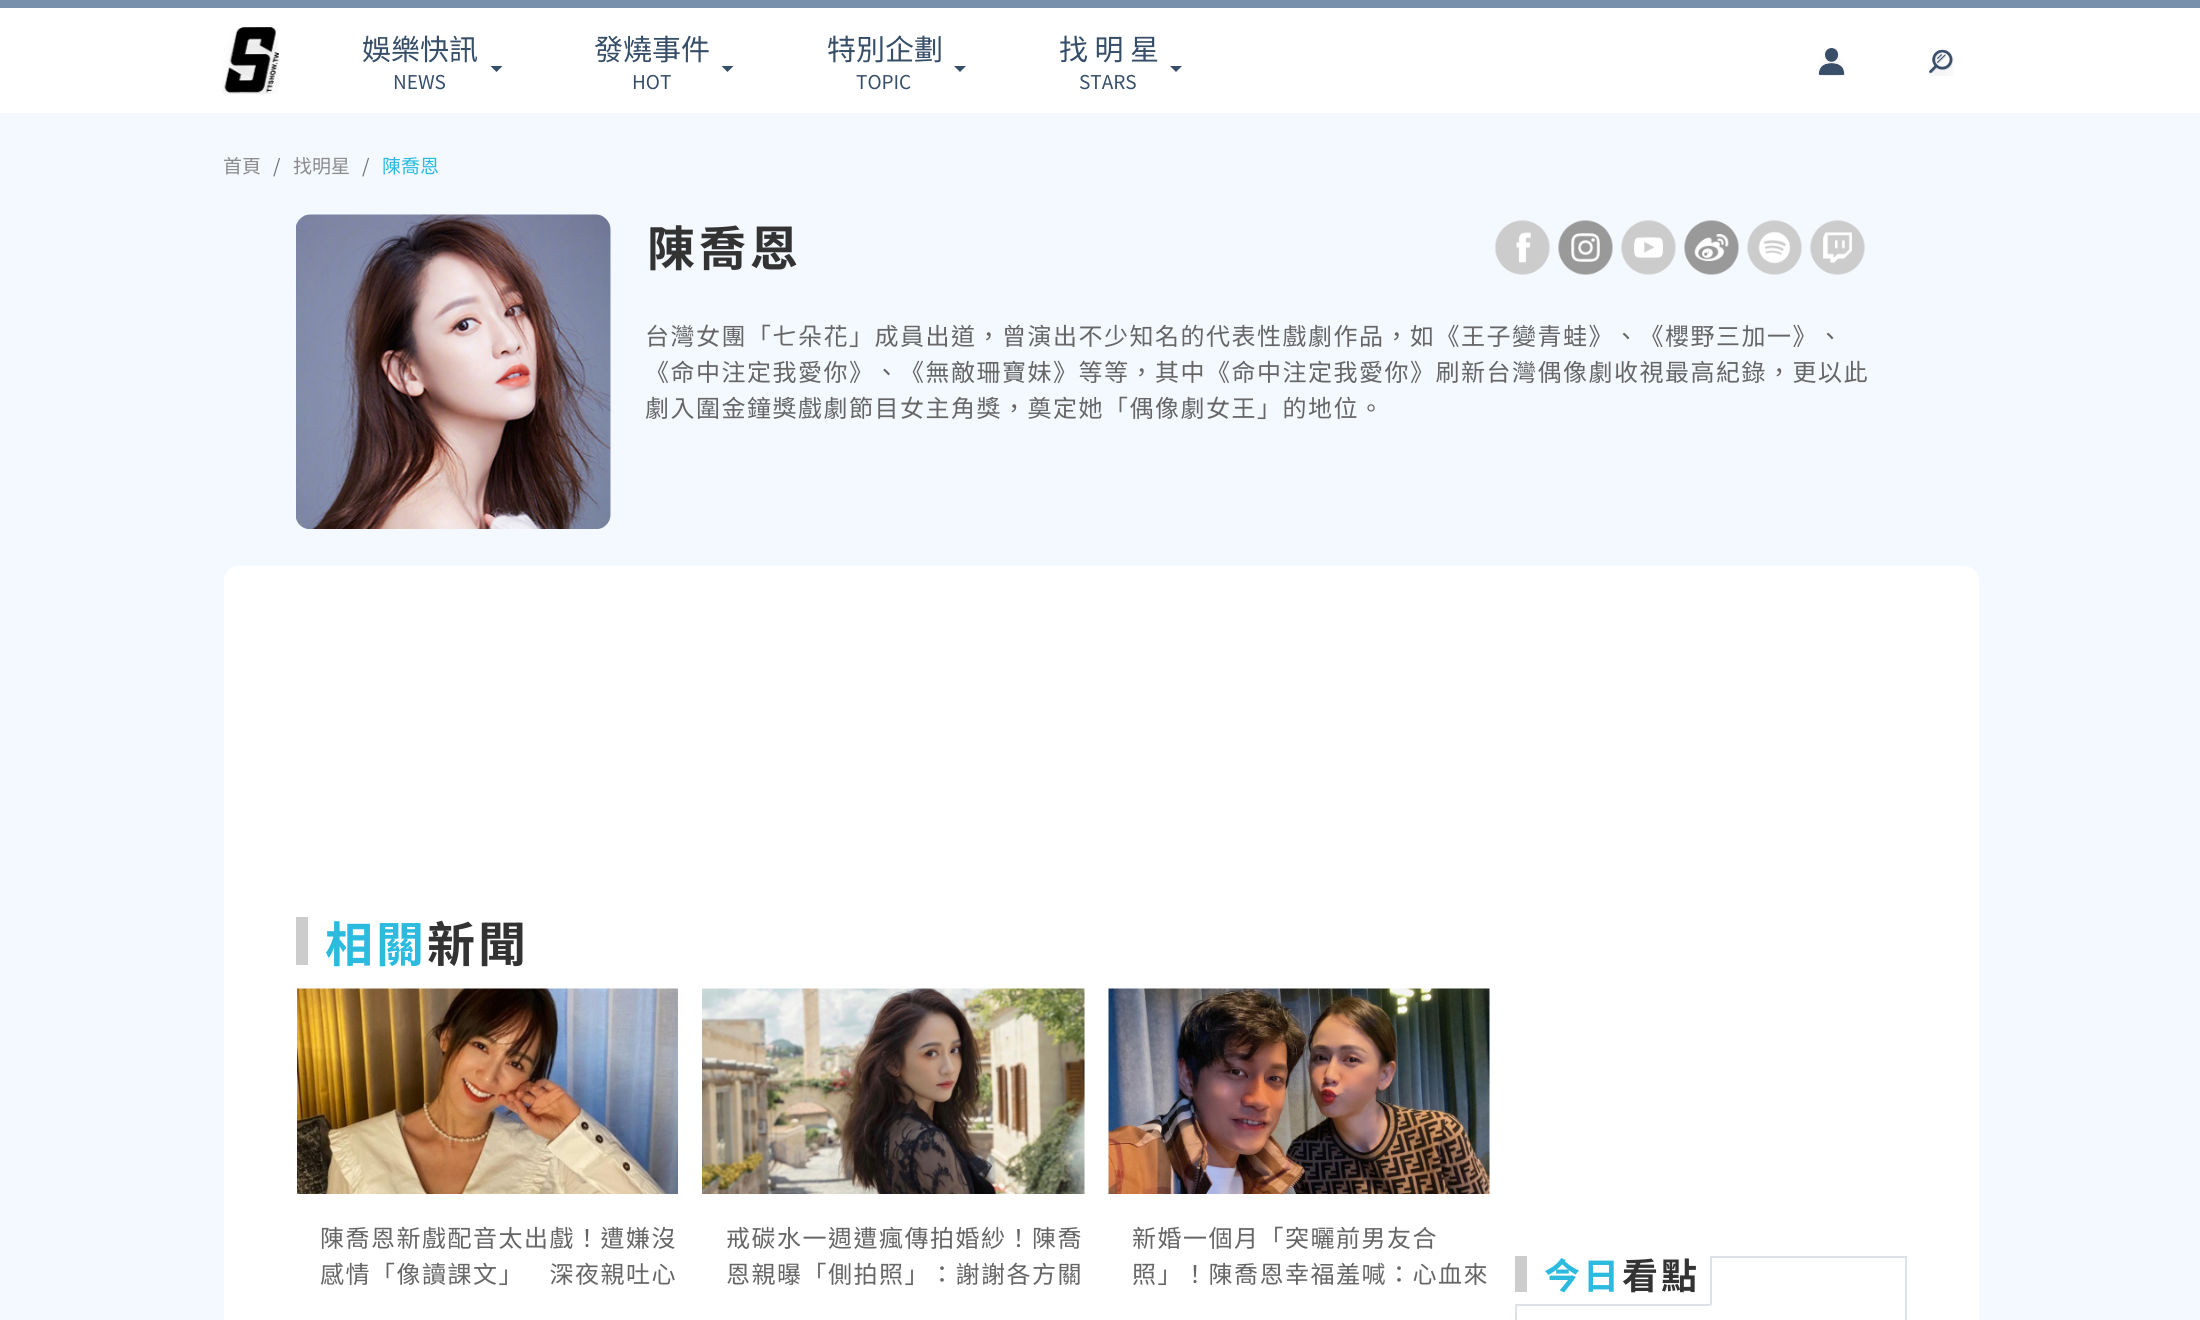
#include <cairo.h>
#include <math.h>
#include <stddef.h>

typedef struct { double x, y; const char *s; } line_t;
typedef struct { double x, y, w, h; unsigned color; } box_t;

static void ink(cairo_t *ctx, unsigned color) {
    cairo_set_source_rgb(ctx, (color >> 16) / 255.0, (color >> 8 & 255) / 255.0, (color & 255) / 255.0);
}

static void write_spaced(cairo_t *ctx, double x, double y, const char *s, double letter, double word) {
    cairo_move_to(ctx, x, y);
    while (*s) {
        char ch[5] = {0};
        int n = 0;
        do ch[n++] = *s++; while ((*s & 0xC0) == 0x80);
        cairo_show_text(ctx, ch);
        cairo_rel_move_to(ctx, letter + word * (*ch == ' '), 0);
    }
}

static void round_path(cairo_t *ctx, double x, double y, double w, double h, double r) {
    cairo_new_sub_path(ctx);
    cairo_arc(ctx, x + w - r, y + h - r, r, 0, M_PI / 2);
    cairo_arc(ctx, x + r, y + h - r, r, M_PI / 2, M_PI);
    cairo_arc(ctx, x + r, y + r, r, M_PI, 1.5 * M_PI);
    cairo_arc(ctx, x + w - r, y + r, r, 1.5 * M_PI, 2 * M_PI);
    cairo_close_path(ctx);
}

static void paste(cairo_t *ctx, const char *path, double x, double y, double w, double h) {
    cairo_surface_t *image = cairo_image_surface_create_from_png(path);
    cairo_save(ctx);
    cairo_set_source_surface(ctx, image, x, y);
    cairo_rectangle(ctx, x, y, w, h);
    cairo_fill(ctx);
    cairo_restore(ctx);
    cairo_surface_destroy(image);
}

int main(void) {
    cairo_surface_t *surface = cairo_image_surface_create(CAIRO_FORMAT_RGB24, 2200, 1320);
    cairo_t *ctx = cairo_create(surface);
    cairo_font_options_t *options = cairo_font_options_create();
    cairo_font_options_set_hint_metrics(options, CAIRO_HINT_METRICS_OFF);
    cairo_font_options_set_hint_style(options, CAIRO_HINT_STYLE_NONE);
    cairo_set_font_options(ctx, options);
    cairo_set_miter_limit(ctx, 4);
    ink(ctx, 0xF4F9FF);
    cairo_paint(ctx);
    ink(ctx, 0xFFFFFF);
    cairo_rectangle(ctx, 0, 8, 2200, 105);
    cairo_fill(ctx);
    ink(ctx, 0x7890AC);
    cairo_rectangle(ctx, 0, 0, 2200, 8);
    cairo_fill(ctx);
    paste(ctx, "media/1.png", 222, 27, 57, 67);
    cairo_select_font_face(ctx, "Noto Sans TC", CAIRO_FONT_SLANT_NORMAL, CAIRO_FONT_WEIGHT_NORMAL);
    cairo_set_font_size(ctx, 29);
    ink(ctx, 0x374E68);
    cairo_move_to(ctx, 362, 60);
    cairo_show_text(ctx, "娛樂快訊");
    cairo_new_path(ctx);
    cairo_move_to(ctx, 490.5, 66);
    cairo_line_to(ctx, 502.5, 66);
    cairo_line_to(ctx, 496.5, 72);
    cairo_close_path(ctx);
    cairo_fill(ctx);
    cairo_set_font_size(ctx, 19);
    cairo_move_to(ctx, 393, 89);
    cairo_show_text(ctx, "NEWS");
    cairo_set_font_size(ctx, 29);
    cairo_move_to(ctx, 594, 60);
    cairo_show_text(ctx, "發燒事件");
    cairo_new_path(ctx);
    cairo_move_to(ctx, 721.5, 66);
    cairo_line_to(ctx, 733.5, 66);
    cairo_line_to(ctx, 727.5, 72);
    cairo_close_path(ctx);
    cairo_fill(ctx);
    cairo_set_font_size(ctx, 19);
    cairo_move_to(ctx, 632, 89);
    cairo_show_text(ctx, "HOT");
    cairo_set_font_size(ctx, 29);
    cairo_move_to(ctx, 827, 60);
    cairo_show_text(ctx, "特別企劃");
    cairo_new_path(ctx);
    cairo_move_to(ctx, 954, 66);
    cairo_line_to(ctx, 966, 66);
    cairo_line_to(ctx, 960, 72);
    cairo_close_path(ctx);
    cairo_fill(ctx);
    cairo_set_font_size(ctx, 19);
    cairo_move_to(ctx, 856, 89);
    cairo_show_text(ctx, "TOPIC");
    cairo_set_font_size(ctx, 29);
    cairo_move_to(ctx, 1059, 60);
    cairo_show_text(ctx, "找 明 星");
    cairo_new_path(ctx);
    cairo_move_to(ctx, 1170, 66);
    cairo_line_to(ctx, 1182, 66);
    cairo_line_to(ctx, 1176, 72);
    cairo_close_path(ctx);
    cairo_fill(ctx);
    cairo_set_font_size(ctx, 19);
    cairo_move_to(ctx, 1079, 89);
    cairo_show_text(ctx, "STARS");
    paste(ctx, "media/2.png", 1818, 48, 27, 28);
    paste(ctx, "media/3.png", 1928, 49, 26, 27);
    ink(ctx, 0x8B8B8B);
    cairo_move_to(ctx, 223, 173);
    cairo_show_text(ctx, "首頁");
    ink(ctx, 0x6C757D);
    cairo_move_to(ctx, 273, 173);
    cairo_show_text(ctx, "/");
    ink(ctx, 0x8B8B8B);
    cairo_move_to(ctx, 293, 173);
    cairo_show_text(ctx, "找明星");
    ink(ctx, 0x6C757D);
    cairo_move_to(ctx, 362, 173);
    cairo_show_text(ctx, "/");
    ink(ctx, 0x2CBBDF);
    cairo_move_to(ctx, 382, 173);
    cairo_show_text(ctx, "陳喬恩");
    paste(ctx, "media/4.png", 296, 214, 315, 315);
    cairo_select_font_face(ctx, "Noto Sans TC", CAIRO_FONT_SLANT_NORMAL, CAIRO_FONT_WEIGHT_BOLD);
    cairo_set_font_size(ctx, 48);
    ink(ctx, 0x333333);
    write_spaced(ctx, 647, 266, "陳喬恩", 3.5, 0);
    paste(ctx, "media/5.png", 1495, 220, 55, 55);
    paste(ctx, "media/6.png", 1558, 220, 55, 55);
    paste(ctx, "media/7.png", 1621, 220, 55, 55);
    paste(ctx, "media/8.png", 1684, 220, 55, 55);
    paste(ctx, "media/9.png", 1747, 220, 55, 55);
    paste(ctx, "media/10.png", 1810, 220, 55, 55);
    cairo_select_font_face(ctx, "Noto Sans TC", CAIRO_FONT_SLANT_NORMAL, CAIRO_FONT_WEIGHT_NORMAL);
    cairo_set_font_size(ctx, 24);
    ink(ctx, 0x666666);
    {
        static const line_t items[] = {
            {645, 345, "台灣女團「七朵花」成員出道，曾演出不少知名的代表性戲劇作品，如《王子變青蛙》、《櫻野三加一》、"},
            {645, 381, "《命中注定我愛你》、《無敵珊寶妹》等等，其中《命中注定我愛你》刷新台灣偶像劇收視最高紀錄，更以此"},
            {645, 417, "劇入圍金鐘獎戲劇節目女主角獎，奠定她「偶像劇女王」的地位。"},
        };
        for (size_t i = 0; i < sizeof items / sizeof *items; i++) {
            write_spaced(ctx, items[i].x, items[i].y, items[i].s, 1.5, 0);
        }
    }
    ink(ctx, 0xFFFFFF);
    round_path(ctx, 224, 566, 1755, 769, 15);
    cairo_fill(ctx);
    ink(ctx, 0xCCCCCC);
    cairo_rectangle(ctx, 296, 917, 12, 48);
    cairo_fill(ctx);
    cairo_select_font_face(ctx, "Noto Sans TC", CAIRO_FONT_SLANT_NORMAL, CAIRO_FONT_WEIGHT_BOLD);
    cairo_set_font_size(ctx, 48);
    ink(ctx, 0x2CBBDF);
    write_spaced(ctx, 325, 962, "相關", 3, 0);
    ink(ctx, 0x333333);
    write_spaced(ctx, 427, 962, "新聞", 3, 0);
    paste(ctx, "media/11.png", 297, 988, 381, 206);
    cairo_select_font_face(ctx, "Noto Sans TC", CAIRO_FONT_SLANT_NORMAL, CAIRO_FONT_WEIGHT_NORMAL);
    cairo_set_font_size(ctx, 24);
    ink(ctx, 0x666666);
    write_spaced(ctx, 320, 1247, "陳喬恩新戲配音太出戲！遭嫌沒", 1.5, 0);
    write_spaced(ctx, 320, 1283, "感情「像讀課文」　深夜親吐心", 1.5, 0);
    paste(ctx, "media/12.png", 702, 988, 383, 206);
    write_spaced(ctx, 726, 1247, "戒碳水一週遭瘋傳拍婚紗！陳喬", 1.5, 0);
    write_spaced(ctx, 726, 1283, "恩親曝「側拍照」：謝謝各方關", 1.5, 0);
    paste(ctx, "media/13.png", 1108, 988, 382, 206);
    write_spaced(ctx, 1132, 1247, "新婚一個月「突曬前男友合", 1.5, 0);
    write_spaced(ctx, 1132, 1283, "照」！陳喬恩幸福羞喊：心血來", 1.5, 0);
    {
        static const box_t items[] = {
            {1515, 1305, 2, 15, 0xDEE2E6},
            {1515, 1304, 195, 2, 0xDEE2E6},
            {1515, 1256, 12, 36, 0xCCCCCC},
        };
        for (size_t i = 0; i < sizeof items / sizeof *items; i++) {
            ink(ctx, items[i].color);
            cairo_rectangle(ctx, items[i].x, items[i].y, items[i].w, items[i].h);
            cairo_fill(ctx);
        }
    }
    cairo_select_font_face(ctx, "Noto Sans TC", CAIRO_FONT_SLANT_NORMAL, CAIRO_FONT_WEIGHT_BOLD);
    cairo_set_font_size(ctx, 36);
    ink(ctx, 0x2CBBDF);
    write_spaced(ctx, 1544, 1289, "今日", 3, 0);
    ink(ctx, 0x333333);
    write_spaced(ctx, 1622, 1289, "看點", 3, 0);
    {
        static const box_t items[] = {
            {1710, 1256, 197, 2, 0xDEE2E6},
            {1905, 1256, 2, 49, 0xDEE2E6},
            {1710, 1256, 2, 49, 0xDEE2E6},
            {1905, 1305, 2, 15, 0xDEE2E6},
        };
        for (size_t i = 0; i < sizeof items / sizeof *items; i++) {
            ink(ctx, items[i].color);
            cairo_rectangle(ctx, items[i].x, items[i].y, items[i].w, items[i].h);
            cairo_fill(ctx);
        }
    }
    cairo_surface_write_to_png(surface, "image.png");
    cairo_font_options_destroy(options);
    cairo_destroy(ctx);
    cairo_surface_destroy(surface);
    return 0;
}
